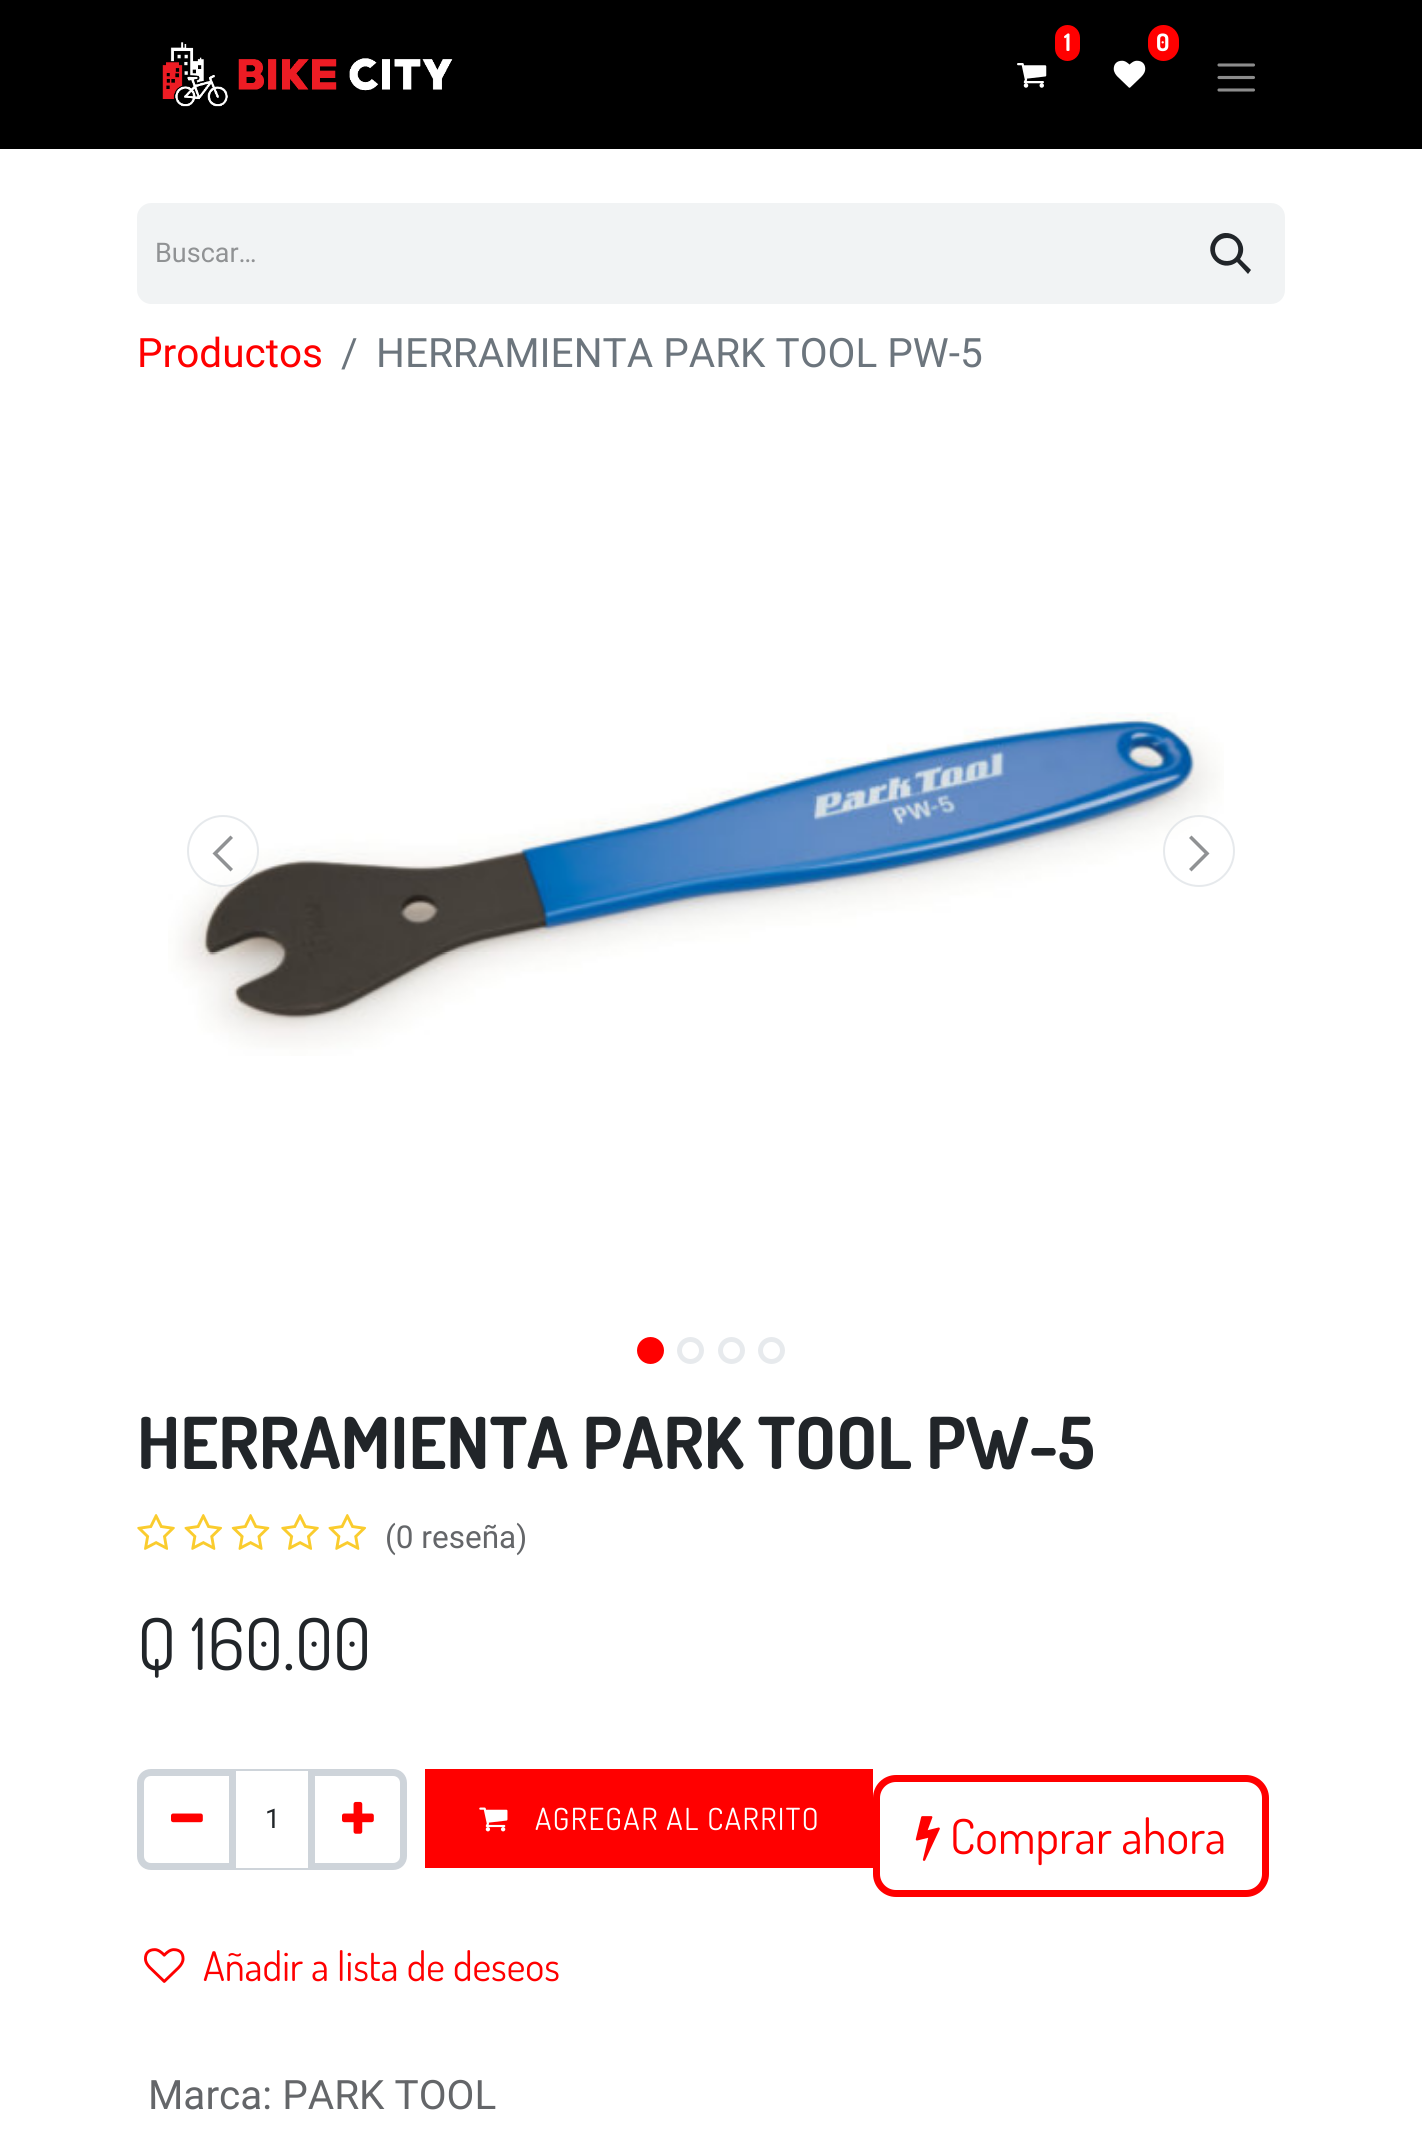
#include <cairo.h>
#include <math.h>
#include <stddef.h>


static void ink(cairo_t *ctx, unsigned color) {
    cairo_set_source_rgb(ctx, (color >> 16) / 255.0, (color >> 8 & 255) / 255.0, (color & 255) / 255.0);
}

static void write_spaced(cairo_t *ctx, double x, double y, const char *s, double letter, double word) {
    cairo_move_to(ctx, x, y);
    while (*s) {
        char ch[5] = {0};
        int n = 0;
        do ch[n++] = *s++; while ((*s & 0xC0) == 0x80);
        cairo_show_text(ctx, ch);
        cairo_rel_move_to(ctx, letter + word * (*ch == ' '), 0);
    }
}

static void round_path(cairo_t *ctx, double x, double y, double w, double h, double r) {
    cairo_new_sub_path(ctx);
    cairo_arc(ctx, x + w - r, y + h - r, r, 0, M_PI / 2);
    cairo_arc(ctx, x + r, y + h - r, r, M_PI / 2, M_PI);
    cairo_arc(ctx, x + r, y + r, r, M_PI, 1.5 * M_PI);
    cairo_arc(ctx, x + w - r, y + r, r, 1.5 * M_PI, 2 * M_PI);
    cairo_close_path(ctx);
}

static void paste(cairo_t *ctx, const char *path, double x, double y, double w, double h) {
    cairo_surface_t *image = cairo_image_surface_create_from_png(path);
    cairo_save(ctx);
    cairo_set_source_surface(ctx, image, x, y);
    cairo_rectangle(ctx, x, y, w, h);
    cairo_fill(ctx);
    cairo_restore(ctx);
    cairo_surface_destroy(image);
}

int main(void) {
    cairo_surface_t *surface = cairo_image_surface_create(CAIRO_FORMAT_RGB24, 1422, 2130);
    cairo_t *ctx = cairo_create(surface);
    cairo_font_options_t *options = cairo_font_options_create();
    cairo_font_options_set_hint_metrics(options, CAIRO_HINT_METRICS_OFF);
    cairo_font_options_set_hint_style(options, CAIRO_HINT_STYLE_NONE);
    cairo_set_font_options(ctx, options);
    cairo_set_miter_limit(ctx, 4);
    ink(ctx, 0xFFFFFF);
    cairo_paint(ctx);
    ink(ctx, 0x000000);
    cairo_rectangle(ctx, 0, 0, 1422, 149);
    cairo_fill(ctx);
    paste(ctx, "media/1.png", 162, 42, 291, 65);
    ink(ctx, 0xFF0000);
    round_path(ctx, 1055, 25, 25, 36, 12.5);
    cairo_fill(ctx);
    cairo_select_font_face(ctx, "Dosis", CAIRO_FONT_SLANT_NORMAL, CAIRO_FONT_WEIGHT_BOLD);
    cairo_set_font_size(ctx, 24);
    ink(ctx, 0xFFFFFF);
    cairo_move_to(ctx, 1064, 51);
    cairo_show_text(ctx, "1");
    paste(ctx, "media/2.png", 1017, 63, 30, 25);
    ink(ctx, 0xFF0000);
    round_path(ctx, 1148, 25, 31, 36, 15.5);
    cairo_fill(ctx);
    ink(ctx, 0xFFFFFF);
    cairo_move_to(ctx, 1156, 51);
    cairo_show_text(ctx, "0");
    paste(ctx, "media/3.png", 1113, 60, 33, 28);
    cairo_new_path(ctx);
    cairo_move_to(ctx, 1219, 65);
    cairo_line_to(ctx, 1253.5, 65);
    cairo_move_to(ctx, 1219, 77.5);
    cairo_line_to(ctx, 1253.5, 77.5);
    cairo_move_to(ctx, 1219, 90);
    cairo_line_to(ctx, 1253.5, 90);
    ink(ctx, 0x8C8C8C);
    cairo_set_line_width(ctx, 3.1);
    cairo_set_line_cap(ctx, CAIRO_LINE_CAP_ROUND);
    cairo_stroke(ctx);
    ink(ctx, 0xF1F3F4);
    cairo_new_path(ctx);
    cairo_move_to(ctx, 151, 203);
    cairo_line_to(ctx, 1179, 203);
    cairo_line_to(ctx, 1179, 304);
    cairo_line_to(ctx, 151, 304);
    cairo_curve_to(ctx, 143.5, 304, 137, 297.5, 137, 290);
    cairo_line_to(ctx, 137, 217);
    cairo_curve_to(ctx, 137, 209.5, 143.5, 203, 151, 203);
    cairo_close_path(ctx);
    cairo_fill(ctx);
    cairo_select_font_face(ctx, "Roboto", CAIRO_FONT_SLANT_NORMAL, CAIRO_FONT_WEIGHT_NORMAL);
    cairo_set_font_size(ctx, 27);
    ink(ctx, 0x909294);
    cairo_move_to(ctx, 155, 262);
    cairo_show_text(ctx, "Buscar…");
    ink(ctx, 0xF1F3F4);
    cairo_new_path(ctx);
    cairo_move_to(ctx, 1180.5, 206.5);
    cairo_line_to(ctx, 1271, 206.5);
    cairo_curve_to(ctx, 1277, 206.5, 1281.5, 211, 1281.5, 217);
    cairo_line_to(ctx, 1281.5, 290);
    cairo_curve_to(ctx, 1281.5, 296, 1277, 300.5, 1271, 300.5);
    cairo_line_to(ctx, 1180.5, 300.5);
    cairo_close_path(ctx);
    cairo_fill_preserve(ctx);
    cairo_set_line_width(ctx, 7);
    cairo_set_line_cap(ctx, CAIRO_LINE_CAP_BUTT);
    cairo_stroke(ctx);
    ink(ctx, 0x212529);
    cairo_new_path(ctx);
    cairo_move_to(ctx, 1214, 239);
    cairo_curve_to(ctx, 1227, 223, 1252, 242, 1240, 259);
    cairo_line_to(ctx, 1251, 270);
    cairo_line_to(ctx, 1248, 274);
    cairo_line_to(ctx, 1237, 262);
    cairo_curve_to(ctx, 1221, 274, 1202, 254, 1214, 239);
    cairo_close_path(ctx);
    cairo_move_to(ctx, 1227, 238);
    cairo_curve_to(ctx, 1211, 238, 1211, 261, 1227, 261);
    cairo_curve_to(ctx, 1242, 261, 1242, 238, 1227, 238);
    cairo_close_path(ctx);
    cairo_fill(ctx);
    cairo_set_font_size(ctx, 40.5);
    ink(ctx, 0xFF0000);
    cairo_move_to(ctx, 137, 367);
    cairo_show_text(ctx, "Productos");
    ink(ctx, 0x6C757D);
    cairo_move_to(ctx, 341, 367);
    cairo_show_text(ctx, "/");
    cairo_move_to(ctx, 376, 367);
    cairo_show_text(ctx, "HERRAMIENTA PARK TOOL PW-5");
    paste(ctx, "media/4.png", 168, 712, 1056, 344);
    cairo_set_source_rgba(ctx, 1, 1, 1, 0.5);
    cairo_arc(ctx, 223, 851, 36, 0, 2 * M_PI);
    cairo_fill(ctx);
    cairo_arc(ctx, 223, 851, 35, 0, 2 * M_PI);
    cairo_set_source_rgba(ctx, 0.808, 0.831, 0.855, 0.5);
    cairo_set_line_width(ctx, 2);
    cairo_stroke(ctx);
    ink(ctx, 0x909294);
    cairo_new_path(ctx);
    cairo_move_to(ctx, 212.5, 853.5);
    cairo_line_to(ctx, 230.5, 835.5);
    cairo_line_to(ctx, 233, 838);
    cairo_line_to(ctx, 217.5, 853.5);
    cairo_line_to(ctx, 233, 869);
    cairo_line_to(ctx, 230.5, 871.5);
    cairo_close_path(ctx);
    cairo_fill(ctx);
    cairo_set_source_rgba(ctx, 1, 1, 1, 0.5);
    cairo_arc(ctx, 1199, 851, 36, 0, 2 * M_PI);
    cairo_fill(ctx);
    cairo_arc(ctx, 1199, 851, 35, 0, 2 * M_PI);
    cairo_set_source_rgba(ctx, 0.808, 0.831, 0.855, 0.5);
    cairo_stroke(ctx);
    ink(ctx, 0x909294);
    cairo_new_path(ctx);
    cairo_move_to(ctx, 1209.5, 853.5);
    cairo_line_to(ctx, 1191.5, 871.5);
    cairo_line_to(ctx, 1189, 869);
    cairo_line_to(ctx, 1204.5, 853.5);
    cairo_line_to(ctx, 1189, 838);
    cairo_line_to(ctx, 1191.5, 835.5);
    cairo_close_path(ctx);
    cairo_fill(ctx);
    ink(ctx, 0xFF0000);
    cairo_arc(ctx, 650.5, 1350.5, 11, 0, 2 * M_PI);
    cairo_fill_preserve(ctx);
    cairo_set_line_width(ctx, 5);
    cairo_stroke(ctx);
    cairo_arc(ctx, 690.5, 1350.5, 11, 0, 2 * M_PI);
    ink(ctx, 0xE7EAED);
    cairo_stroke(ctx);
    cairo_arc(ctx, 731.5, 1350.5, 11, 0, 2 * M_PI);
    cairo_stroke(ctx);
    cairo_arc(ctx, 771.5, 1350.5, 11, 0, 2 * M_PI);
    cairo_stroke(ctx);
    cairo_select_font_face(ctx, "Dosis", CAIRO_FONT_SLANT_NORMAL, CAIRO_FONT_WEIGHT_BOLD);
    cairo_set_font_size(ctx, 71.5);
    ink(ctx, 0x212529);
    cairo_move_to(ctx, 137, 1469);
    cairo_show_text(ctx, "HERRAMIENTA PARK TOOL PW-5");
    paste(ctx, "media/5.png", 137, 1514, 38, 36);
    paste(ctx, "media/6.png", 184, 1514, 39, 36);
    paste(ctx, "media/7.png", 231, 1514, 39, 36);
    paste(ctx, "media/5.png", 281, 1514, 38, 36);
    paste(ctx, "media/6.png", 328, 1514, 39, 36);
    cairo_select_font_face(ctx, "Roboto", CAIRO_FONT_SLANT_NORMAL, CAIRO_FONT_WEIGHT_NORMAL);
    cairo_set_font_size(ctx, 31.5);
    ink(ctx, 0x646669);
    cairo_move_to(ctx, 385, 1548);
    cairo_show_text(ctx, "(0 reseña)");
    cairo_select_font_face(ctx, "Dosis", CAIRO_FONT_SLANT_NORMAL, CAIRO_FONT_WEIGHT_NORMAL);
    cairo_set_font_size(ctx, 71.5);
    ink(ctx, 0x212529);
    cairo_move_to(ctx, 137, 1670);
    cairo_show_text(ctx, "Q 160.00");
    cairo_rectangle(ctx, 235, 1770, 75, 99);
    ink(ctx, 0xCED4DA);
    cairo_set_line_width(ctx, 2);
    cairo_stroke(ctx);
    cairo_new_path(ctx);
    cairo_move_to(ctx, 151, 1772.5);
    cairo_line_to(ctx, 232.5, 1772.5);
    cairo_line_to(ctx, 232.5, 1866.5);
    cairo_line_to(ctx, 151, 1866.5);
    cairo_curve_to(ctx, 145, 1866.5, 140.5, 1862, 140.5, 1856);
    cairo_line_to(ctx, 140.5, 1783);
    cairo_curve_to(ctx, 140.5, 1777, 145, 1772.5, 151, 1772.5);
    cairo_close_path(ctx);
    cairo_set_line_width(ctx, 7);
    cairo_stroke(ctx);
    paste(ctx, "media/8.png", 171, 1813, 32, 10);
    cairo_select_font_face(ctx, "Roboto", CAIRO_FONT_SLANT_NORMAL, CAIRO_FONT_WEIGHT_NORMAL);
    cairo_set_font_size(ctx, 27);
    ink(ctx, 0x212529);
    cairo_move_to(ctx, 265, 1828);
    cairo_show_text(ctx, "1");
    cairo_new_path(ctx);
    cairo_move_to(ctx, 311.5, 1772.5);
    cairo_line_to(ctx, 393, 1772.5);
    cairo_curve_to(ctx, 399, 1772.5, 403.5, 1777, 403.5, 1783);
    cairo_line_to(ctx, 403.5, 1856);
    cairo_curve_to(ctx, 403.5, 1862, 399, 1866.5, 393, 1866.5);
    cairo_line_to(ctx, 311.5, 1866.5);
    cairo_close_path(ctx);
    ink(ctx, 0xCED4DA);
    cairo_stroke(ctx);
    paste(ctx, "media/9.png", 342, 1801, 32, 33);
    ink(ctx, 0xFF0000);
    cairo_rectangle(ctx, 425, 1769, 448, 99);
    cairo_fill(ctx);
    paste(ctx, "media/10.png", 479, 1807, 29, 25);
    cairo_select_font_face(ctx, "Dosis", CAIRO_FONT_SLANT_NORMAL, CAIRO_FONT_WEIGHT_NORMAL);
    cairo_set_font_size(ctx, 30.4);
    ink(ctx, 0xFFFFFF);
    write_spaced(ctx, 535, 1830, "AGREGAR AL CARRITO", 1.5, 0);
    round_path(ctx, 876.5, 1778.5, 389, 115, 19.5);
    ink(ctx, 0xFF0000);
    cairo_stroke(ctx);
    paste(ctx, "media/11.png", 915, 1816, 25, 45);
    cairo_set_font_size(ctx, 48.25);
    cairo_move_to(ctx, 950, 1854);
    cairo_show_text(ctx, "Comprar ahora");
    paste(ctx, "media/12.png", 144, 1948, 41, 35);
    cairo_set_font_size(ctx, 40.5);
    cairo_move_to(ctx, 203, 1981);
    cairo_show_text(ctx, "Añadir a lista de deseos");
    cairo_select_font_face(ctx, "Roboto", CAIRO_FONT_SLANT_NORMAL, CAIRO_FONT_WEIGHT_NORMAL);
    ink(ctx, 0x646669);
    cairo_move_to(ctx, 148, 2109);
    cairo_show_text(ctx, "Marca: PARK TOOL");
    cairo_surface_write_to_png(surface, "image.png");
    cairo_font_options_destroy(options);
    cairo_destroy(ctx);
    cairo_surface_destroy(surface);
    return 0;
}
